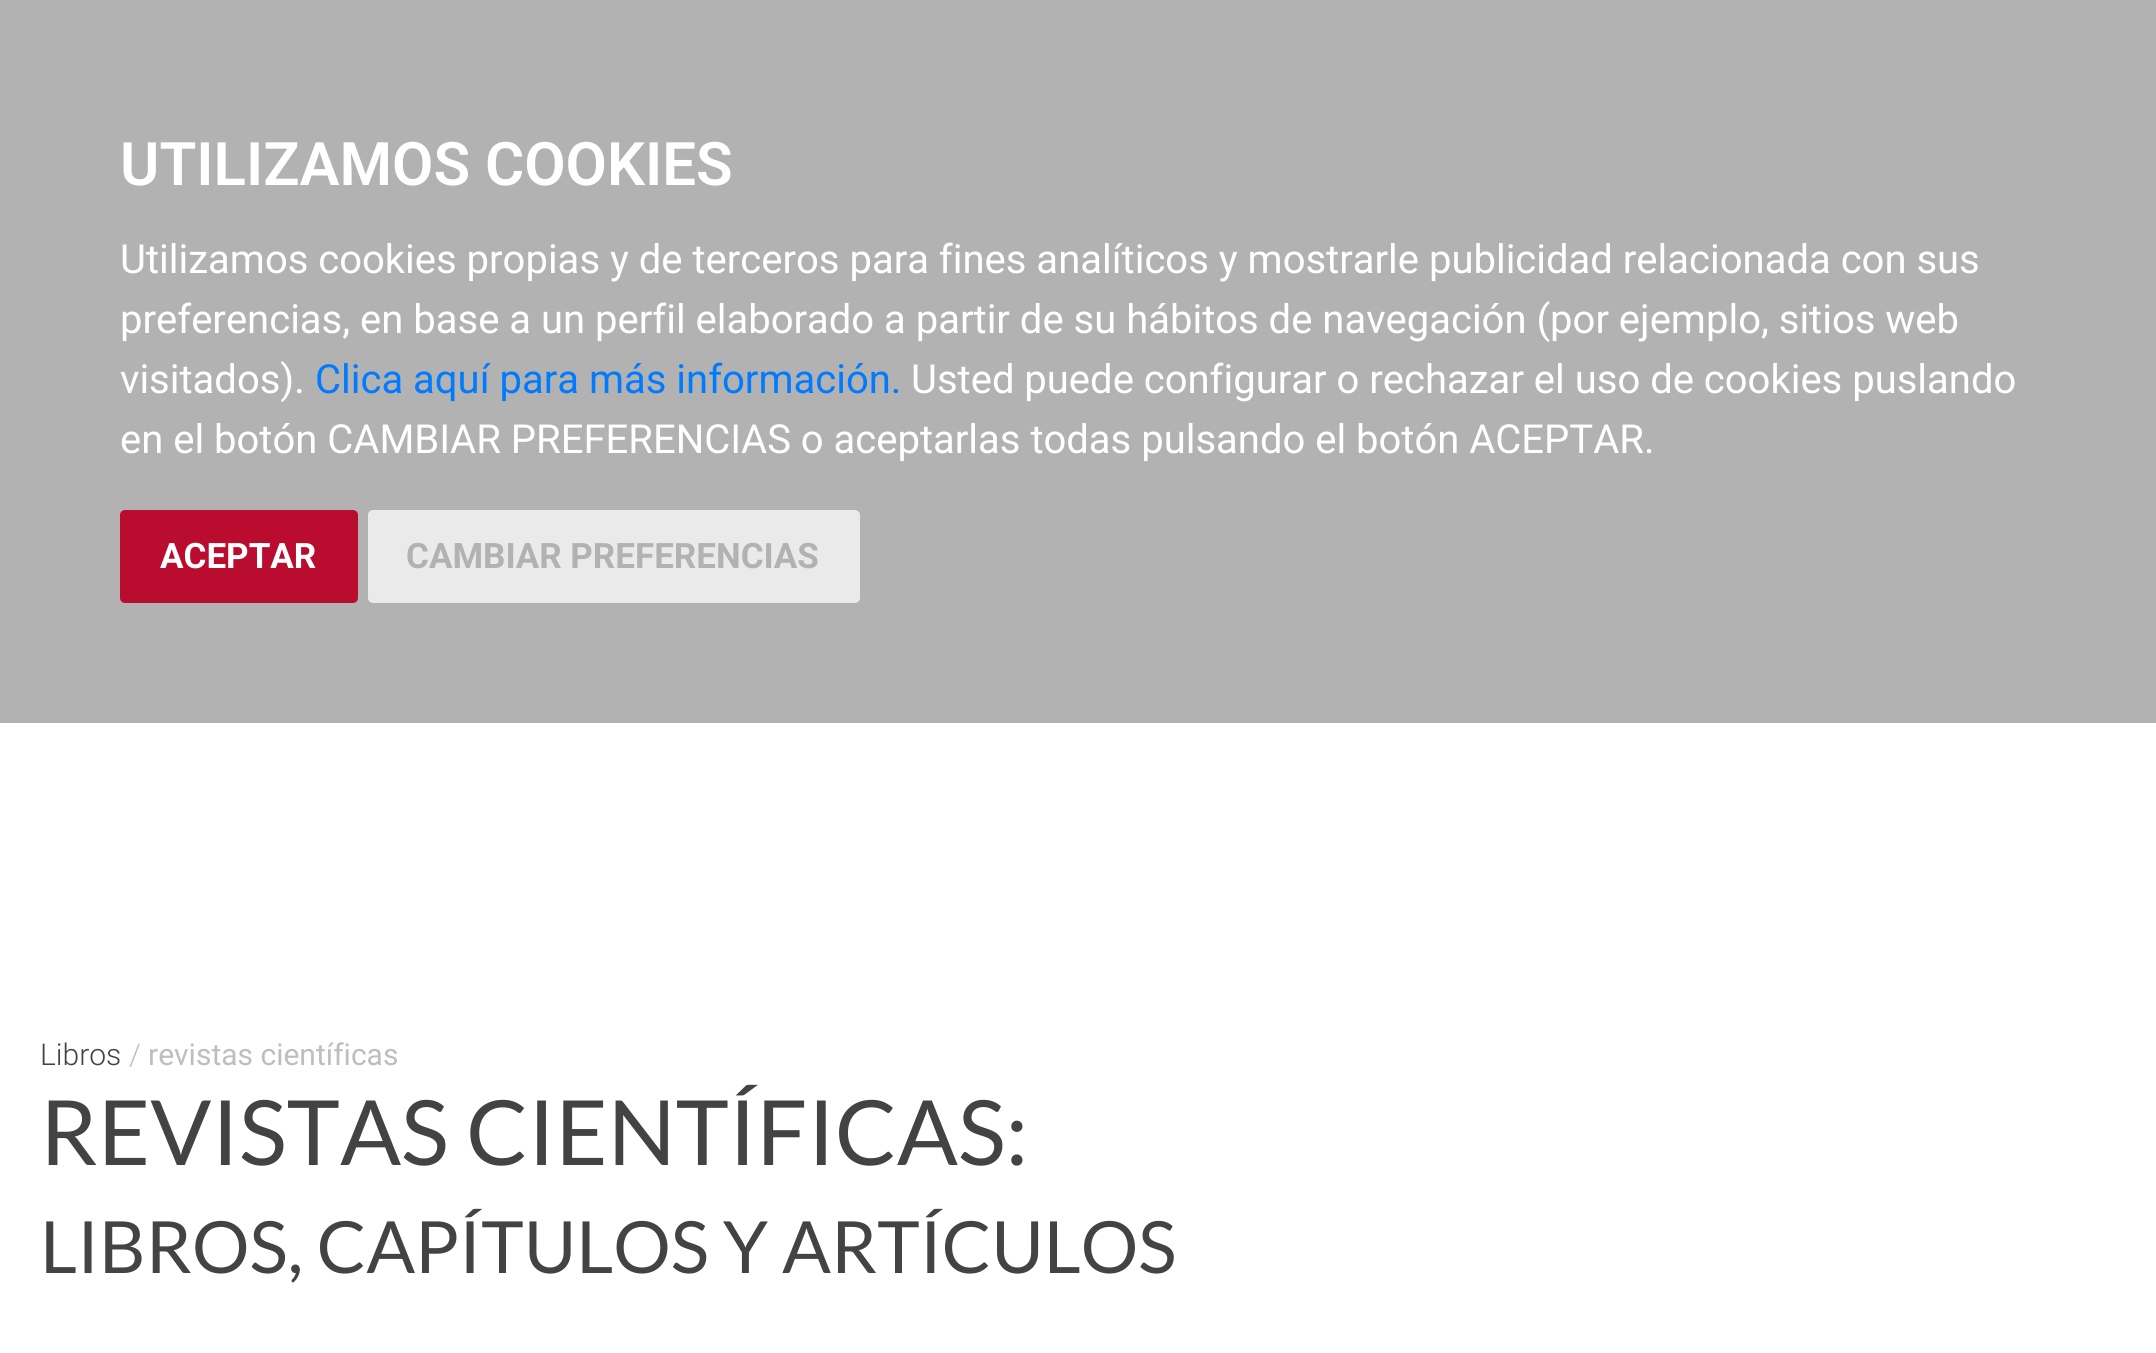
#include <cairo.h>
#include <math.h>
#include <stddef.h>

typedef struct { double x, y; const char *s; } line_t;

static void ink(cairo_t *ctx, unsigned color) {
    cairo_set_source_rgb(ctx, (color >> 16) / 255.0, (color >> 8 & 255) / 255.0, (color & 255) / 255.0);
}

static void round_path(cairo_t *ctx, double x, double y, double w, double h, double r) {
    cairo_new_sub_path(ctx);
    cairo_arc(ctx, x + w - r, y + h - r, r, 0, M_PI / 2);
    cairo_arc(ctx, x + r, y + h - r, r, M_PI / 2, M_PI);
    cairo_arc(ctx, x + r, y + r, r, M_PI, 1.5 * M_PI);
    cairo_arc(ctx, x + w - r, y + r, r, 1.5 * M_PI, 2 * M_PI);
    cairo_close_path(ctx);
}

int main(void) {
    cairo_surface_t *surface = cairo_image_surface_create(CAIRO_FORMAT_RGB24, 2156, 1353);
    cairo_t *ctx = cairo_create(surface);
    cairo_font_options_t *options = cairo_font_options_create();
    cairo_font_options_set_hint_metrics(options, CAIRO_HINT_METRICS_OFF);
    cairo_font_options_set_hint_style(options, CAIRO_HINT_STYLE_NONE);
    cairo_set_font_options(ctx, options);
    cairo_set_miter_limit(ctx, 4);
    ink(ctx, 0xFFFFFF);
    cairo_paint(ctx);
    ink(ctx, 0xB2B2B2);
    cairo_rectangle(ctx, 0, 0, 2156, 723);
    cairo_fill(ctx);
    cairo_select_font_face(ctx, "Roboto SemiBold", CAIRO_FONT_SLANT_NORMAL, CAIRO_FONT_WEIGHT_NORMAL);
    cairo_set_font_size(ctx, 60);
    ink(ctx, 0xFFFFFF);
    cairo_move_to(ctx, 120, 185);
    cairo_show_text(ctx, "UTILIZAMOS COOKIES");
    cairo_select_font_face(ctx, "Roboto", CAIRO_FONT_SLANT_NORMAL, CAIRO_FONT_WEIGHT_NORMAL);
    cairo_set_font_size(ctx, 40);
    {
        static const line_t items[] = {
            {120, 273, "Utilizamos cookies propias y de terceros para fines analíticos y mostrarle publicidad relacionada con sus"},
            {120, 333, "preferencias, en base a un perfil elaborado a partir de su hábitos de navegación (por ejemplo, sitios web"},
            {120, 393, "visitados)."},
        };
        for (size_t i = 0; i < sizeof items / sizeof *items; i++) {
            cairo_move_to(ctx, items[i].x, items[i].y);
            cairo_show_text(ctx, items[i].s);
        }
    }
    ink(ctx, 0x007BFF);
    cairo_move_to(ctx, 315, 393);
    cairo_show_text(ctx, "Clica aquí para más información.");
    ink(ctx, 0xFFFFFF);
    cairo_move_to(ctx, 911, 393);
    cairo_show_text(ctx, "Usted puede configurar o rechazar el uso de cookies puslando");
    cairo_move_to(ctx, 120, 453);
    cairo_show_text(ctx, "en el botón CAMBIAR PREFERENCIAS o aceptarlas todas pulsando el botón ACEPTAR.");
    ink(ctx, 0xBA0C2F);
    round_path(ctx, 120, 510, 238, 93, 5);
    cairo_fill(ctx);
    cairo_select_font_face(ctx, "Roboto", CAIRO_FONT_SLANT_NORMAL, CAIRO_FONT_WEIGHT_BOLD);
    cairo_set_font_size(ctx, 35);
    ink(ctx, 0xFFFFFF);
    cairo_move_to(ctx, 160, 568);
    cairo_show_text(ctx, "ACEPTAR");
    ink(ctx, 0xEAEAEA);
    round_path(ctx, 368, 510, 492, 93, 5);
    cairo_fill(ctx);
    ink(ctx, 0xB2B2B2);
    cairo_move_to(ctx, 406, 568);
    cairo_show_text(ctx, "CAMBIAR PREFERENCIAS");
    cairo_select_font_face(ctx, "Roboto Light", CAIRO_FONT_SLANT_NORMAL, CAIRO_FONT_WEIGHT_NORMAL);
    cairo_set_font_size(ctx, 30);
    ink(ctx, 0x434343);
    cairo_move_to(ctx, 40, 1065);
    cairo_show_text(ctx, "Libros");
    ink(ctx, 0xBEBEBE);
    cairo_move_to(ctx, 129, 1065);
    cairo_show_text(ctx, "/");
    cairo_select_font_face(ctx, "Roboto", CAIRO_FONT_SLANT_NORMAL, CAIRO_FONT_WEIGHT_NORMAL);
    cairo_move_to(ctx, 148, 1065);
    cairo_show_text(ctx, "revistas científicas");
    cairo_select_font_face(ctx, "Lato", CAIRO_FONT_SLANT_NORMAL, CAIRO_FONT_WEIGHT_NORMAL);
    cairo_set_font_size(ctx, 90);
    ink(ctx, 0x434343);
    cairo_move_to(ctx, 40, 1165);
    cairo_show_text(ctx, "REVISTAS CIENTÍFICAS:");
    cairo_set_font_size(ctx, 72);
    cairo_move_to(ctx, 40, 1273);
    cairo_show_text(ctx, "LIBROS, CAPÍTULOS Y ARTÍCULOS");
    cairo_surface_write_to_png(surface, "image.png");
    cairo_font_options_destroy(options);
    cairo_destroy(ctx);
    cairo_surface_destroy(surface);
    return 0;
}
